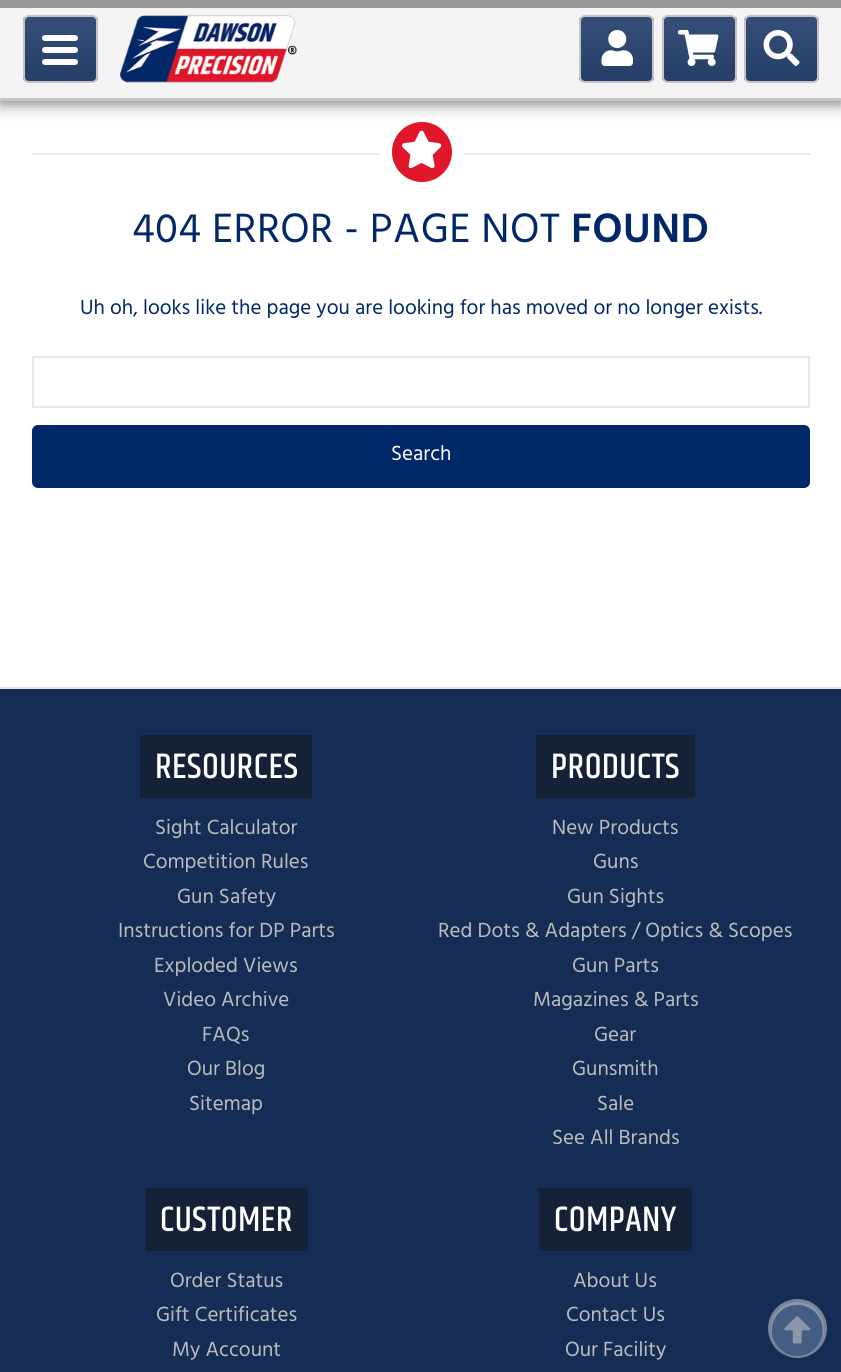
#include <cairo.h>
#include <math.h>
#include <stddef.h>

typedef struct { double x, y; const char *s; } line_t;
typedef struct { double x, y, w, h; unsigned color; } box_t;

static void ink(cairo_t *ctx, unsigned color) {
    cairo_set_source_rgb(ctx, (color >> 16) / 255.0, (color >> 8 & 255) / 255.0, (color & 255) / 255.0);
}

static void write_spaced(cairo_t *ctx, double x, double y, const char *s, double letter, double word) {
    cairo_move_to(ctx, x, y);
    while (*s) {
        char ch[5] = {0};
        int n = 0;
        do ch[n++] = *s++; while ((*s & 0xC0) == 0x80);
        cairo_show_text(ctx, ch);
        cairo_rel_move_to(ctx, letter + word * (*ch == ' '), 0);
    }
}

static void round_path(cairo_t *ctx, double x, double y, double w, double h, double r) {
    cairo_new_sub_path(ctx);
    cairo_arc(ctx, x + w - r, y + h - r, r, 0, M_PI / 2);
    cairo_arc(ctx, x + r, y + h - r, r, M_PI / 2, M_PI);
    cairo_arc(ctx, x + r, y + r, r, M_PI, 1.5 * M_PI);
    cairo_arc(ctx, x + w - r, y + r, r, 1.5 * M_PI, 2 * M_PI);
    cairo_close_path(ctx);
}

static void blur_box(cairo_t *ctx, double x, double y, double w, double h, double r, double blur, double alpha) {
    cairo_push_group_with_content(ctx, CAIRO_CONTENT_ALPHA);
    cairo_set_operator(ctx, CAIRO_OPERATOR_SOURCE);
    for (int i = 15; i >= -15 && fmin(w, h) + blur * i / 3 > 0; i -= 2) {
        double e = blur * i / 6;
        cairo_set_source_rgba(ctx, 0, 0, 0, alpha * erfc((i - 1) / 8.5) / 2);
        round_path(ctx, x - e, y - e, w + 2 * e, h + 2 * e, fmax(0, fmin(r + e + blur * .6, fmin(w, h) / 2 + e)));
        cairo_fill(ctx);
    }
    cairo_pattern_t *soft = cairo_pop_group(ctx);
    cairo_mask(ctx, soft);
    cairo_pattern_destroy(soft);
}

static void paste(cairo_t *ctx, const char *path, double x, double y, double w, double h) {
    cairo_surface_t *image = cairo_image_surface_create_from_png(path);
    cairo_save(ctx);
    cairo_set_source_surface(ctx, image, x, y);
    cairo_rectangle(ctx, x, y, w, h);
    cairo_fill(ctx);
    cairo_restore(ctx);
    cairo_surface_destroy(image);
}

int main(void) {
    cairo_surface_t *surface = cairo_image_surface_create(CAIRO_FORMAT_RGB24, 841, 1372);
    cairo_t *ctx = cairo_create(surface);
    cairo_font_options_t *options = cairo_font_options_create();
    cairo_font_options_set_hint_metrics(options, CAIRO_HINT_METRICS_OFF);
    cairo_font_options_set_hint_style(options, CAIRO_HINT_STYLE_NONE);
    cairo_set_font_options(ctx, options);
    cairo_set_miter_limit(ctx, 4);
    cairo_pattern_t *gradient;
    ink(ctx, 0xFFFFFF);
    cairo_paint(ctx);
    ink(ctx, 0xEBEBEB);
    cairo_rectangle(ctx, 32, 153, 778, 2);
    cairo_fill(ctx);
    ink(ctx, 0xE0162B);
    cairo_arc(ctx, 422, 152, 36, 0, 2 * M_PI);
    cairo_fill_preserve(ctx);
    ink(ctx, 0xFFFFFF);
    cairo_set_line_width(ctx, 12);
    cairo_stroke(ctx);
    ink(ctx, 0x000000);
    blur_box(ctx, 0, 3, 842, 101, 0, 7.5, 0.5);
    ink(ctx, 0xF4F4F4);
    cairo_rectangle(ctx, 0, 8, 841, 90);
    cairo_fill(ctx);
    ink(ctx, 0xC4C4C4);
    cairo_rectangle(ctx, 0, 98, 841, 3);
    cairo_fill(ctx);
    cairo_save(ctx);
    round_path(ctx, 23, 15, 75, 68, 6);
    cairo_clip(ctx);
    gradient = cairo_pattern_create_linear(60, 16, 60, 81);
    cairo_pattern_add_color_stop_rgba(gradient, 0, 0.208, 0.31, 0.475, 1);
    cairo_pattern_add_color_stop_rgba(gradient, 1, 0.141, 0.243, 0.404, 1);
    cairo_set_source(ctx, gradient);
    cairo_pattern_destroy(gradient);
    cairo_rectangle(ctx, 23, 17, 75, 64);
    cairo_fill(ctx);
    cairo_restore(ctx);
    round_path(ctx, 24, 16, 73, 66, 5);
    cairo_set_line_width(ctx, 2);
    cairo_stroke(ctx);
    ink(ctx, 0xFFFFFF);
    round_path(ctx, 42, 47, 36, 6, 3);
    cairo_fill(ctx);
    round_path(ctx, 42, 35, 36, 6, 3);
    cairo_fill(ctx);
    round_path(ctx, 42, 59, 36, 6, 3);
    cairo_fill(ctx);
    paste(ctx, "media/1.png", 120, 15, 177, 68);
    cairo_save(ctx);
    round_path(ctx, 579, 15, 75, 68, 6);
    cairo_clip(ctx);
    gradient = cairo_pattern_create_linear(617, 16, 617, 81);
    cairo_pattern_add_color_stop_rgba(gradient, 0, 0.208, 0.31, 0.475, 1);
    cairo_pattern_add_color_stop_rgba(gradient, 1, 0.141, 0.243, 0.404, 1);
    cairo_set_source(ctx, gradient);
    cairo_pattern_destroy(gradient);
    cairo_rectangle(ctx, 579, 17, 75, 64);
    cairo_fill(ctx);
    cairo_restore(ctx);
    round_path(ctx, 580, 16, 73, 66, 5);
    ink(ctx, 0xC4C4C4);
    cairo_stroke(ctx);
    paste(ctx, "media/2.png", 601, 30, 32, 36);
    cairo_save(ctx);
    round_path(ctx, 662, 15, 75, 68, 6);
    cairo_clip(ctx);
    gradient = cairo_pattern_create_linear(699, 16, 699, 81);
    cairo_pattern_add_color_stop_rgba(gradient, 0, 0.208, 0.31, 0.475, 1);
    cairo_pattern_add_color_stop_rgba(gradient, 1, 0.141, 0.243, 0.404, 1);
    cairo_set_source(ctx, gradient);
    cairo_pattern_destroy(gradient);
    cairo_rectangle(ctx, 662, 17, 75, 64);
    cairo_fill(ctx);
    cairo_restore(ctx);
    round_path(ctx, 663, 16, 73, 66, 5);
    cairo_stroke(ctx);
    paste(ctx, "media/3.png", 678, 30, 41, 36);
    cairo_save(ctx);
    round_path(ctx, 744, 15, 75, 68, 6);
    cairo_clip(ctx);
    gradient = cairo_pattern_create_linear(782, 16, 782, 81);
    cairo_pattern_add_color_stop_rgba(gradient, 0, 0.208, 0.31, 0.475, 1);
    cairo_pattern_add_color_stop_rgba(gradient, 1, 0.141, 0.243, 0.404, 1);
    cairo_set_source(ctx, gradient);
    cairo_pattern_destroy(gradient);
    cairo_rectangle(ctx, 744, 17, 75, 64);
    cairo_fill(ctx);
    cairo_restore(ctx);
    round_path(ctx, 745, 16, 73, 66, 5);
    cairo_stroke(ctx);
    paste(ctx, "media/4.png", 763, 30, 37, 36);
    ink(ctx, 0x999999);
    cairo_rectangle(ctx, 0, 0, 841, 8);
    cairo_fill(ctx);
    paste(ctx, "media/5.png", 402, 130, 40, 39);
    cairo_select_font_face(ctx, "Hind", CAIRO_FONT_SLANT_NORMAL, CAIRO_FONT_WEIGHT_NORMAL);
    cairo_set_font_size(ctx, 42);
    ink(ctx, 0x002868);
    write_spaced(ctx, 132, 242, "404 ERROR - PAGE NOT", 0.4, 0);
    cairo_select_font_face(ctx, "Hind SemiBold", CAIRO_FONT_SLANT_NORMAL, CAIRO_FONT_WEIGHT_NORMAL);
    write_spaced(ctx, 571, 242, "FOUND", 0.4, 0);
    cairo_select_font_face(ctx, "Hind", CAIRO_FONT_SLANT_NORMAL, CAIRO_FONT_WEIGHT_NORMAL);
    cairo_set_font_size(ctx, 21);
    cairo_move_to(ctx, 80, 314);
    cairo_show_text(ctx, "Uh oh, looks like the page you are looking for has moved or no longer exists.");
    cairo_rectangle(ctx, 33, 357, 776, 50);
    ink(ctx, 0xE6E6E6);
    cairo_stroke(ctx);
    ink(ctx, 0x002868);
    round_path(ctx, 33, 426, 776, 61, 5);
    cairo_fill_preserve(ctx);
    cairo_stroke(ctx);
    ink(ctx, 0xFFFFFF);
    cairo_move_to(ctx, 391, 460);
    cairo_show_text(ctx, "Search");
    {
        static const box_t items[] = {
            {0, 689, 841, 683, 0x152D54},
            {0, 687, 841, 2, 0xE5E5E5},
            {140, 735, 172, 63, 0x142137},
        };
        for (size_t i = 0; i < sizeof items / sizeof *items; i++) {
            ink(ctx, items[i].color);
            cairo_rectangle(ctx, items[i].x, items[i].y, items[i].w, items[i].h);
            cairo_fill(ctx);
        }
    }
    cairo_select_font_face(ctx, "Khand Medium", CAIRO_FONT_SLANT_NORMAL, CAIRO_FONT_WEIGHT_NORMAL);
    cairo_set_font_size(ctx, 36);
    ink(ctx, 0xFFFFFF);
    write_spaced(ctx, 155, 778, "RESOURCES", 0.4, 0);
    cairo_select_font_face(ctx, "Hind", CAIRO_FONT_SLANT_NORMAL, CAIRO_FONT_WEIGHT_NORMAL);
    cairo_set_font_size(ctx, 21);
    ink(ctx, 0xBCBCBC);
    {
        static const line_t items[] = {
            {155, 834, "Sight Calculator"},
            {143, 868, "Competition Rules"},
            {177, 903, "Gun Safety"},
            {118, 937, "Instructions for DP Parts"},
            {154, 972, "Exploded Views"},
            {163, 1006, "Video Archive"},
            {202, 1041, "FAQs"},
            {187, 1075, "Our Blog"},
            {189, 1110, "Sitemap"},
        };
        for (size_t i = 0; i < sizeof items / sizeof *items; i++) {
            cairo_move_to(ctx, items[i].x, items[i].y);
            cairo_show_text(ctx, items[i].s);
        }
    }
    ink(ctx, 0x142137);
    cairo_rectangle(ctx, 536, 735, 159, 63);
    cairo_fill(ctx);
    cairo_select_font_face(ctx, "Khand Medium", CAIRO_FONT_SLANT_NORMAL, CAIRO_FONT_WEIGHT_NORMAL);
    cairo_set_font_size(ctx, 36);
    ink(ctx, 0xFFFFFF);
    write_spaced(ctx, 551, 778, "PRODUCTS", 0.4, 0);
    cairo_select_font_face(ctx, "Hind", CAIRO_FONT_SLANT_NORMAL, CAIRO_FONT_WEIGHT_NORMAL);
    cairo_set_font_size(ctx, 21);
    ink(ctx, 0xBCBCBC);
    {
        static const line_t items[] = {
            {552, 834, "New Products"},
            {593, 868, "Guns"},
            {567, 903, "Gun Sights"},
            {438, 937, "Red Dots & Adapters / Optics & Scopes"},
            {572, 972, "Gun Parts"},
            {533, 1006, "Magazines & Parts"},
            {594, 1041, "Gear"},
            {572, 1075, "Gunsmith"},
            {597, 1110, "Sale"},
            {552, 1144, "See All Brands"},
        };
        for (size_t i = 0; i < sizeof items / sizeof *items; i++) {
            cairo_move_to(ctx, items[i].x, items[i].y);
            cairo_show_text(ctx, items[i].s);
        }
    }
    ink(ctx, 0x142137);
    cairo_rectangle(ctx, 146, 1188, 162, 63);
    cairo_fill(ctx);
    cairo_select_font_face(ctx, "Khand Medium", CAIRO_FONT_SLANT_NORMAL, CAIRO_FONT_WEIGHT_NORMAL);
    cairo_set_font_size(ctx, 36);
    ink(ctx, 0xFFFFFF);
    write_spaced(ctx, 160, 1231, "CUSTOMER", 0.4, 0);
    cairo_select_font_face(ctx, "Hind", CAIRO_FONT_SLANT_NORMAL, CAIRO_FONT_WEIGHT_NORMAL);
    cairo_set_font_size(ctx, 21);
    ink(ctx, 0xBCBCBC);
    {
        static const line_t items[] = {
            {170, 1287, "Order Status"},
            {156, 1321, "Gift Certificates"},
            {172, 1356, "My Account"},
        };
        for (size_t i = 0; i < sizeof items / sizeof *items; i++) {
            cairo_move_to(ctx, items[i].x, items[i].y);
            cairo_show_text(ctx, items[i].s);
        }
    }
    ink(ctx, 0x142137);
    cairo_rectangle(ctx, 539, 1188, 153, 63);
    cairo_fill(ctx);
    cairo_select_font_face(ctx, "Khand Medium", CAIRO_FONT_SLANT_NORMAL, CAIRO_FONT_WEIGHT_NORMAL);
    cairo_set_font_size(ctx, 36);
    ink(ctx, 0xFFFFFF);
    write_spaced(ctx, 554, 1231, "COMPANY", 0.4, 0);
    cairo_select_font_face(ctx, "Hind", CAIRO_FONT_SLANT_NORMAL, CAIRO_FONT_WEIGHT_NORMAL);
    cairo_set_font_size(ctx, 21);
    ink(ctx, 0xBCBCBC);
    {
        static const line_t items[] = {
            {573, 1287, "About Us"},
            {566, 1321, "Contact Us"},
            {565, 1356, "Our Facility"},
        };
        for (size_t i = 0; i < sizeof items / sizeof *items; i++) {
            cairo_move_to(ctx, items[i].x, items[i].y);
            cairo_show_text(ctx, items[i].s);
        }
    }
    ink(ctx, 0x8A96AA);
    cairo_new_path(ctx);
    cairo_arc(ctx, 797.5, 1328.5, 28, 0, 2 * M_PI);
    cairo_fill_preserve(ctx);
    ink(ctx, 0x778397);
    cairo_set_line_width(ctx, 3);
    cairo_stroke(ctx);
    paste(ctx, "media/6.png", 771, 1304, 52, 52);
    cairo_surface_write_to_png(surface, "image.png");
    cairo_font_options_destroy(options);
    cairo_destroy(ctx);
    cairo_surface_destroy(surface);
    return 0;
}
